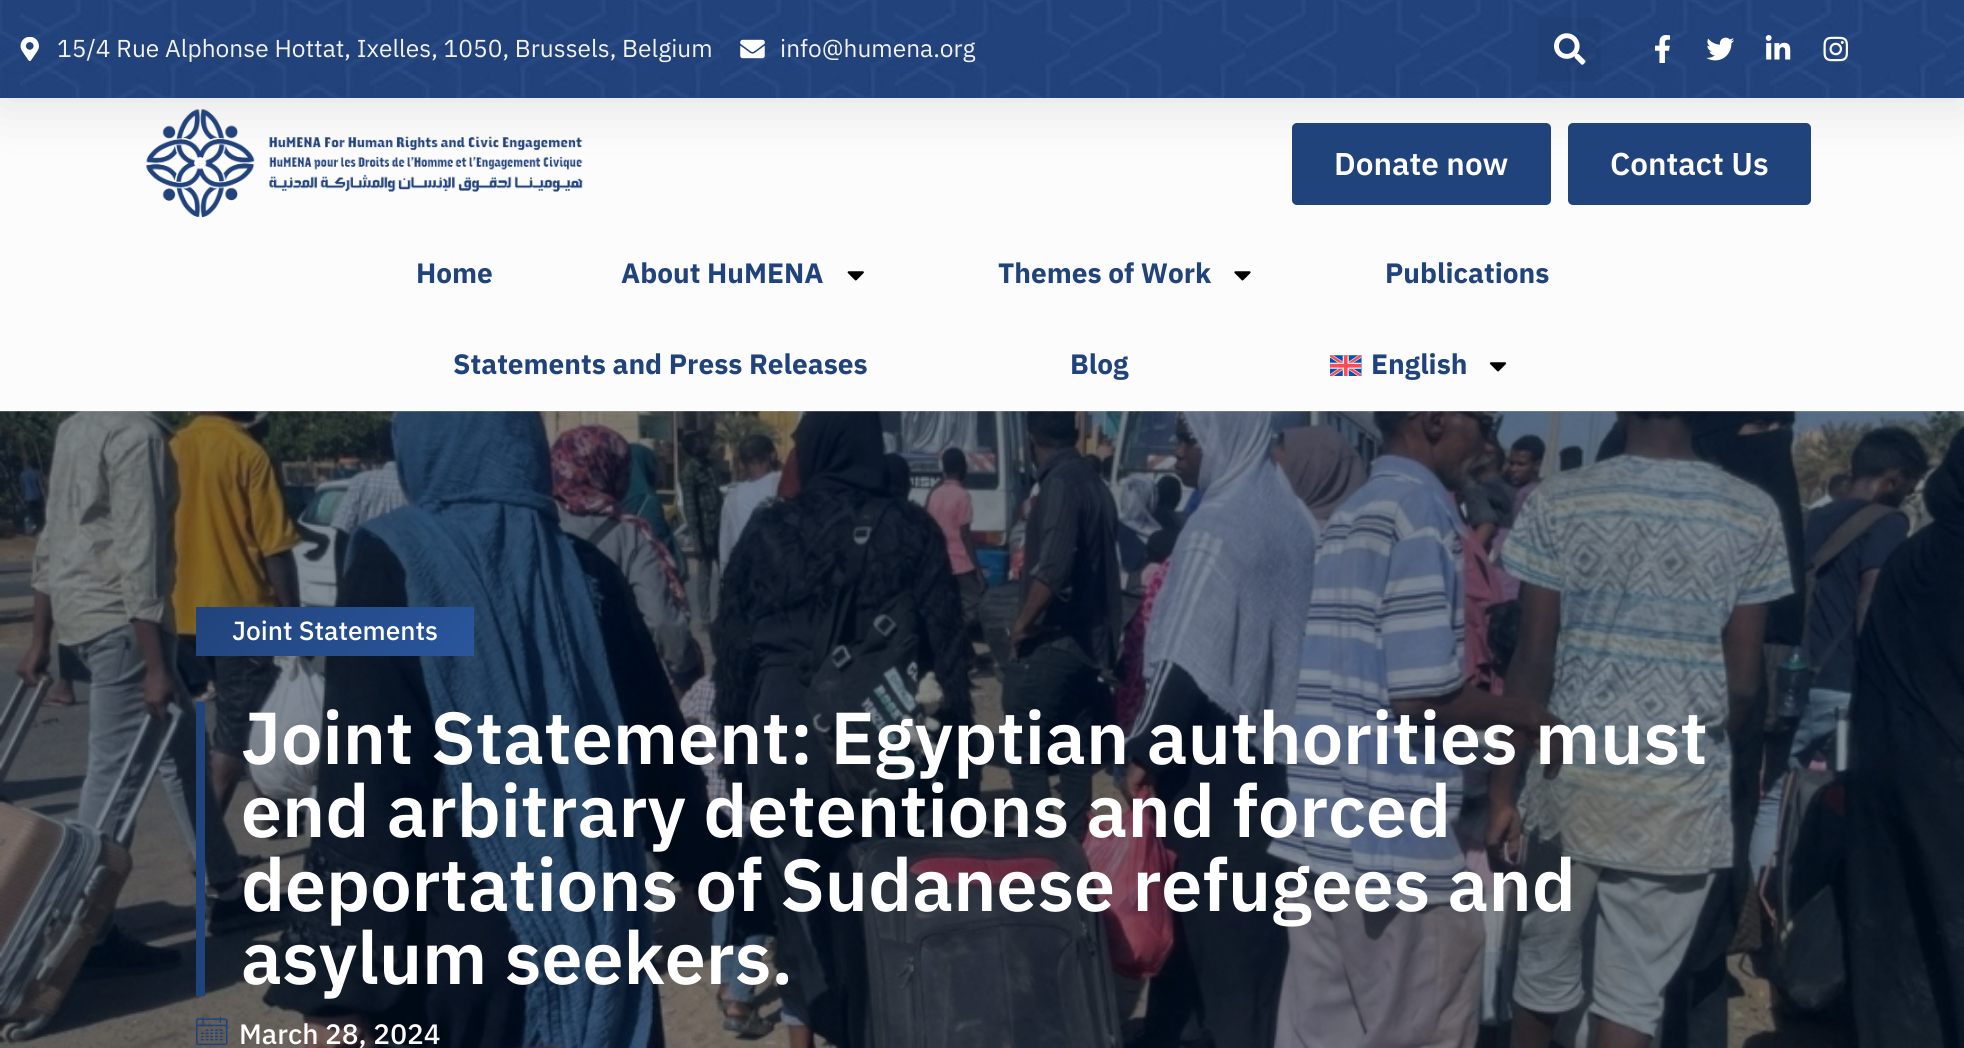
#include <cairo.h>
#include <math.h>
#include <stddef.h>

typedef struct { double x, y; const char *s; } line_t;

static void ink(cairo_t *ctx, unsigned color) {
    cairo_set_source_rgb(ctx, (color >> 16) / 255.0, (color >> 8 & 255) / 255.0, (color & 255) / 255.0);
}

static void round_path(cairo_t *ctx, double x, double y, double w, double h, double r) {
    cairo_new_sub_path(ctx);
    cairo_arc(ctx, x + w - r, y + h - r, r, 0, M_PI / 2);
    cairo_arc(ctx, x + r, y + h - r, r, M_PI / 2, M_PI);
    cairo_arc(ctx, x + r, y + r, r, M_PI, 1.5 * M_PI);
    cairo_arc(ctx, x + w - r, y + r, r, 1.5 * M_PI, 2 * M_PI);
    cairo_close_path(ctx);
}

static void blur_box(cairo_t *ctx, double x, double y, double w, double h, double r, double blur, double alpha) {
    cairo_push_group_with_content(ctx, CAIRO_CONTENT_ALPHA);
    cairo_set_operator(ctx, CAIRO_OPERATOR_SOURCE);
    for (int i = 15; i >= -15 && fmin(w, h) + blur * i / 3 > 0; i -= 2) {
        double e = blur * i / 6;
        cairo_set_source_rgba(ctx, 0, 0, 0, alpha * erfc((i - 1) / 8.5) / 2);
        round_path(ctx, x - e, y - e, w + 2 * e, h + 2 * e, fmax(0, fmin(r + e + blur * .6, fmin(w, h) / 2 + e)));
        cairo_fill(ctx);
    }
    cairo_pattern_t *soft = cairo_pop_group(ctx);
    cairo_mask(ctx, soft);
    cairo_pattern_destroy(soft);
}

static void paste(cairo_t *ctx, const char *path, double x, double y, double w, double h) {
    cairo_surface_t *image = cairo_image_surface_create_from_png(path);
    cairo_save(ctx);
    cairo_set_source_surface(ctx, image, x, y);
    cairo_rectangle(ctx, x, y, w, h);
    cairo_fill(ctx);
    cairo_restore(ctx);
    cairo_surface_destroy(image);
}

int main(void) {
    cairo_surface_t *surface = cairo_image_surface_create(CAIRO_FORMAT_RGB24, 1964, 1048);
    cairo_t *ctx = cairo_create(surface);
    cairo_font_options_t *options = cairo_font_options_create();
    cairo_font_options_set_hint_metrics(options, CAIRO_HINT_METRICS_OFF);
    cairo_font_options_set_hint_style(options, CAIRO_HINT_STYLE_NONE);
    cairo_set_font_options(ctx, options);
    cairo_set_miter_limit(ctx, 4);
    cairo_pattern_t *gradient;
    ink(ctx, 0xFCFCFC);
    cairo_paint(ctx);
    cairo_save(ctx);
    cairo_rectangle(ctx, 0, 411, 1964, 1);
    cairo_clip(ctx);
    ink(ctx, 0x000A15);
    blur_box(ctx, 0, 0, 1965, 411, 0, 9, 0.5);
    cairo_restore(ctx);
    ink(ctx, 0x000000);
    blur_box(ctx, 0, 9, 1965, 98, 0, 26, 0.1);
    paste(ctx, "media/1.png", 0, 0, 1964, 98);
    paste(ctx, "media/2.png", 20, 37, 19, 24);
    cairo_select_font_face(ctx, "IBM Plex Sans Arabic", CAIRO_FONT_SLANT_NORMAL, CAIRO_FONT_WEIGHT_NORMAL);
    cairo_set_font_size(ctx, 24.5);
    ink(ctx, 0xF2F2F2);
    cairo_move_to(ctx, 57, 57);
    cairo_show_text(ctx, "15/4 Rue Alphonse Hottat, Ixelles, 1050, Brussels, Belgium");
    paste(ctx, "media/3.png", 740, 39, 25, 20);
    cairo_move_to(ctx, 780, 57);
    cairo_show_text(ctx, "info@humena.org");
    cairo_set_source_rgba(ctx, 0, 0, 0, 0.05);
    cairo_rectangle(ctx, 1538, 18, 63, 63);
    cairo_fill(ctx);
    paste(ctx, "media/4.png", 1554, 33, 32, 32);
    paste(ctx, "media/5.png", 1655, 35, 15, 28);
    paste(ctx, "media/6.png", 1706, 37, 28, 24);
    paste(ctx, "media/7.png", 1765, 35, 26, 25);
    paste(ctx, "media/8.png", 1823, 36, 25, 26);
    paste(ctx, "media/9.png", 146, 109, 437, 109);
    ink(ctx, 0x21437B);
    round_path(ctx, 1292, 123, 259, 82, 5);
    cairo_fill(ctx);
    cairo_select_font_face(ctx, "IBM Plex Sans Arabic SemiBold", CAIRO_FONT_SLANT_NORMAL, CAIRO_FONT_WEIGHT_NORMAL);
    cairo_set_font_size(ctx, 31.5);
    ink(ctx, 0xFFFFFF);
    cairo_move_to(ctx, 1334, 175);
    cairo_show_text(ctx, "Donate now");
    ink(ctx, 0x21437B);
    round_path(ctx, 1568, 123, 243, 82, 5);
    cairo_fill(ctx);
    ink(ctx, 0xFFFFFF);
    cairo_move_to(ctx, 1610, 175);
    cairo_show_text(ctx, "Contact Us");
    cairo_select_font_face(ctx, "IBM Plex Sans Arabic", CAIRO_FONT_SLANT_NORMAL, CAIRO_FONT_WEIGHT_BOLD);
    cairo_set_font_size(ctx, 28);
    ink(ctx, 0x21437B);
    cairo_move_to(ctx, 416, 283);
    cairo_show_text(ctx, "Home");
    cairo_move_to(ctx, 621, 283);
    cairo_show_text(ctx, "About HuMENA");
    paste(ctx, "media/10.png", 847, 271, 17, 10);
    cairo_move_to(ctx, 998, 283);
    cairo_show_text(ctx, "Themes of Work");
    paste(ctx, "media/11.png", 1234, 271, 17, 10);
    {
        static const line_t items[] = {
            {1385, 283, "Publications"},
            {453, 374, "Statements and Press Releases"},
            {1070, 374, "Blog"},
        };
        for (size_t i = 0; i < sizeof items / sizeof *items; i++) {
            cairo_move_to(ctx, items[i].x, items[i].y);
            cairo_show_text(ctx, items[i].s);
        }
    }
    paste(ctx, "media/12.png", 1330, 355, 32, 21);
    cairo_move_to(ctx, 1371, 374);
    cairo_show_text(ctx, "English");
    paste(ctx, "media/13.png", 1489, 362, 18, 10);
    paste(ctx, "media/14.png", 0, 411, 1964, 637);
    gradient = cairo_pattern_create_linear(253, 550, 417, 714);
    cairo_pattern_add_color_stop_rgba(gradient, 0, 0.129, 0.263, 0.482, 1);
    cairo_pattern_add_color_stop_rgba(gradient, 1, 0.165, 0.337, 0.616, 1);
    cairo_set_source(ctx, gradient);
    cairo_pattern_destroy(gradient);
    cairo_rectangle(ctx, 196, 607, 278, 49);
    cairo_fill(ctx);
    cairo_select_font_face(ctx, "IBM Plex Sans Arabic Medium", CAIRO_FONT_SLANT_NORMAL, CAIRO_FONT_WEIGHT_NORMAL);
    cairo_set_font_size(ctx, 26.25);
    ink(ctx, 0xFFFFFF);
    cairo_move_to(ctx, 232, 640);
    cairo_show_text(ctx, "Joint Statements");
    ink(ctx, 0x21437B);
    cairo_rectangle(ctx, 196, 702, 9, 294);
    cairo_fill(ctx);
    cairo_select_font_face(ctx, "IBM Plex Sans Arabic SemiBold", CAIRO_FONT_SLANT_NORMAL, CAIRO_FONT_WEIGHT_NORMAL);
    cairo_set_font_size(ctx, 73.5);
    ink(ctx, 0xFFFFFF);
    {
        static const line_t items[] = {
            {241, 764, "Joint Statement: Egyptian authorities must"},
            {241, 837, "end arbitrary detentions and forced"},
            {241, 911, "deportations of Sudanese refugees and"},
            {241, 984, "asylum seekers."},
        };
        for (size_t i = 0; i < sizeof items / sizeof *items; i++) {
            cairo_move_to(ctx, items[i].x, items[i].y);
            cairo_show_text(ctx, items[i].s);
        }
    }
    paste(ctx, "media/15.png", 196, 1016, 32, 30);
    cairo_select_font_face(ctx, "IBM Plex Sans Arabic Medium", CAIRO_FONT_SLANT_NORMAL, CAIRO_FONT_WEIGHT_NORMAL);
    cairo_set_font_size(ctx, 28);
    cairo_move_to(ctx, 239, 1044);
    cairo_show_text(ctx, "March 28, 2024");
    cairo_surface_write_to_png(surface, "image.png");
    cairo_font_options_destroy(options);
    cairo_destroy(ctx);
    cairo_surface_destroy(surface);
    return 0;
}
